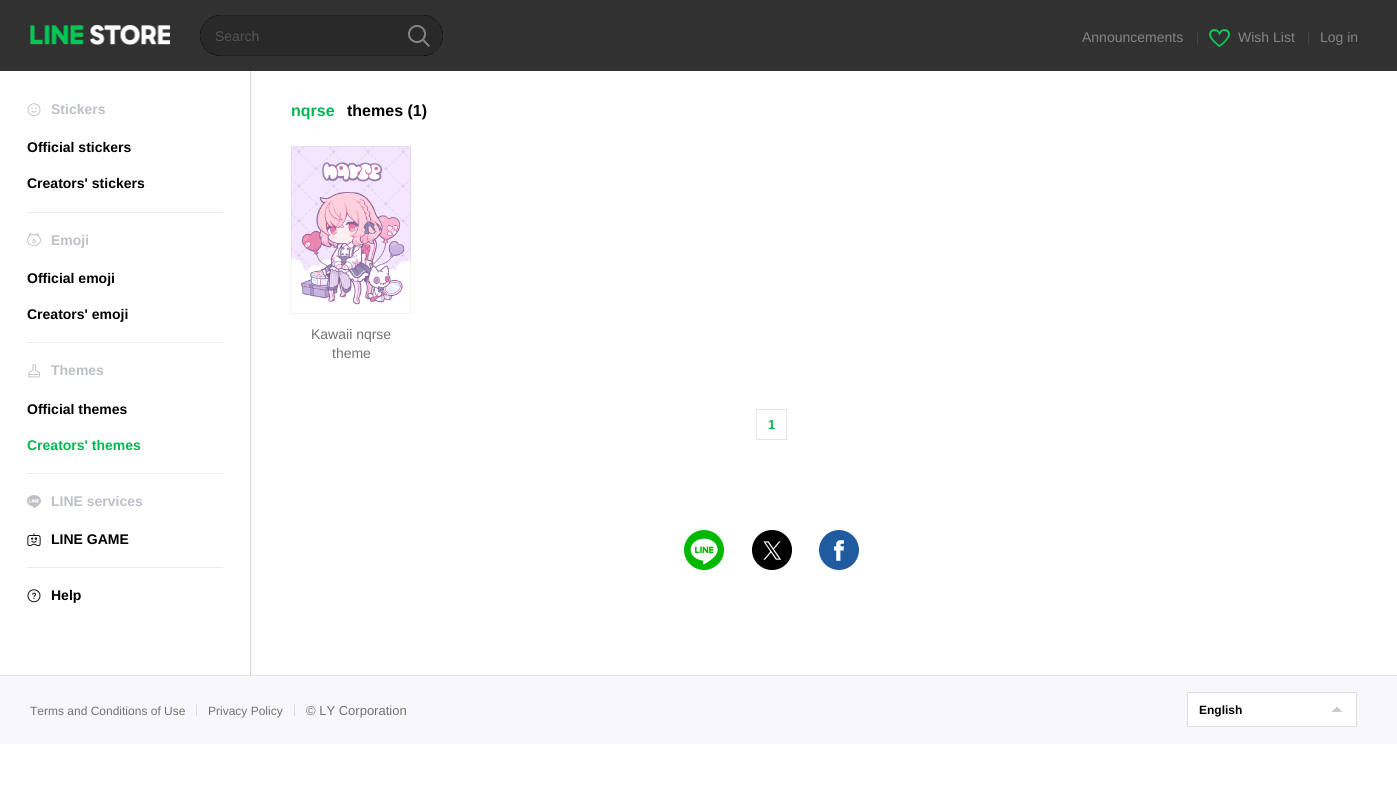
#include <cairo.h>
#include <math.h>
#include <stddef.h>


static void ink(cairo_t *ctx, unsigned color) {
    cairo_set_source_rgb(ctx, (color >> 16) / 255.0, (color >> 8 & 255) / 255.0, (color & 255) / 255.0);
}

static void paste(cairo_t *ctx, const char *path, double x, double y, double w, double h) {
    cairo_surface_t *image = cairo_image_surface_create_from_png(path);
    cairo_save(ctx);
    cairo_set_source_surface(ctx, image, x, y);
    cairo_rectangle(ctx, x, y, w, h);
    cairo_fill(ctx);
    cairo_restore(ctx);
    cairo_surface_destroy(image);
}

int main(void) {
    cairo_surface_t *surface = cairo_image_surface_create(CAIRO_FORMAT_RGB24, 1397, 800);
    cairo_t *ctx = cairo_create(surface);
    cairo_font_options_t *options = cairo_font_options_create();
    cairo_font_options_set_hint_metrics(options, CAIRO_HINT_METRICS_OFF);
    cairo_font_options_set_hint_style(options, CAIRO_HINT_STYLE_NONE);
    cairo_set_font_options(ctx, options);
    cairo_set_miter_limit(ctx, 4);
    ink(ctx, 0xFFFFFF);
    cairo_paint(ctx);
    ink(ctx, 0x313131);
    cairo_rectangle(ctx, 0, 0, 1397, 71);
    cairo_fill(ctx);
    paste(ctx, "media/1.png", 30, 25, 140, 20);
    paste(ctx, "media/2.png", 200, 15, 243, 41);
    cairo_select_font_face(ctx, "Liberation Sans", CAIRO_FONT_SLANT_NORMAL, CAIRO_FONT_WEIGHT_NORMAL);
    cairo_set_font_size(ctx, 14);
    ink(ctx, 0x545454);
    cairo_move_to(ctx, 215, 41);
    cairo_show_text(ctx, "Search");
    paste(ctx, "media/3.png", 408, 25, 22, 22);
    ink(ctx, 0x848484);
    cairo_move_to(ctx, 1082, 42);
    cairo_show_text(ctx, "Announcements");
    ink(ctx, 0x444444);
    cairo_rectangle(ctx, 1197, 32, 1, 13);
    cairo_fill(ctx);
    paste(ctx, "media/4.png", 1209, 29, 21, 18);
    ink(ctx, 0x848484);
    cairo_move_to(ctx, 1238, 42);
    cairo_show_text(ctx, "Wish List");
    ink(ctx, 0x444444);
    cairo_rectangle(ctx, 1308, 32, 1, 13);
    cairo_fill(ctx);
    ink(ctx, 0x848484);
    cairo_move_to(ctx, 1320, 42);
    cairo_show_text(ctx, "Log in");
    paste(ctx, "media/5.png", 27, 103, 14, 14);
    cairo_select_font_face(ctx, "Liberation Sans", CAIRO_FONT_SLANT_NORMAL, CAIRO_FONT_WEIGHT_BOLD);
    ink(ctx, 0xBEC0C7);
    cairo_move_to(ctx, 51, 114);
    cairo_show_text(ctx, "Stickers");
    ink(ctx, 0x000000);
    cairo_move_to(ctx, 27, 152);
    cairo_show_text(ctx, "Official stickers");
    cairo_move_to(ctx, 27, 188);
    cairo_show_text(ctx, "Creators' stickers");
    ink(ctx, 0xEBEBEB);
    cairo_rectangle(ctx, 27, 212, 196, 1);
    cairo_fill(ctx);
    paste(ctx, "media/6.png", 27, 233, 14, 14);
    ink(ctx, 0xBEC0C7);
    cairo_move_to(ctx, 51, 245);
    cairo_show_text(ctx, "Emoji");
    ink(ctx, 0x000000);
    cairo_move_to(ctx, 27, 283);
    cairo_show_text(ctx, "Official emoji");
    cairo_move_to(ctx, 27, 319);
    cairo_show_text(ctx, "Creators' emoji");
    ink(ctx, 0xEBEBEB);
    cairo_rectangle(ctx, 27, 342, 196, 1);
    cairo_fill(ctx);
    paste(ctx, "media/7.png", 28, 364, 12, 14);
    ink(ctx, 0xBEC0C7);
    cairo_move_to(ctx, 51, 375);
    cairo_show_text(ctx, "Themes");
    ink(ctx, 0x000000);
    cairo_move_to(ctx, 27, 414);
    cairo_show_text(ctx, "Official themes");
    ink(ctx, 0x00B84F);
    cairo_move_to(ctx, 27, 450);
    cairo_show_text(ctx, "Creators' themes");
    ink(ctx, 0xEBEBEB);
    cairo_rectangle(ctx, 27, 473, 196, 1);
    cairo_fill(ctx);
    paste(ctx, "media/8.png", 27, 495, 14, 14);
    ink(ctx, 0xBEC0C7);
    cairo_move_to(ctx, 51, 506);
    cairo_show_text(ctx, "LINE services");
    paste(ctx, "media/9.png", 27, 533, 14, 14);
    ink(ctx, 0x000000);
    cairo_move_to(ctx, 51, 544);
    cairo_show_text(ctx, "LINE GAME");
    ink(ctx, 0xEBEBEB);
    cairo_rectangle(ctx, 27, 567, 196, 1);
    cairo_fill(ctx);
    paste(ctx, "media/10.png", 27, 589, 14, 14);
    ink(ctx, 0x000000);
    cairo_move_to(ctx, 51, 600);
    cairo_show_text(ctx, "Help");
    ink(ctx, 0xD6D6D6);
    cairo_rectangle(ctx, 250, 71, 1, 604);
    cairo_fill(ctx);
    cairo_set_font_size(ctx, 16);
    ink(ctx, 0x00B84F);
    cairo_move_to(ctx, 291, 116);
    cairo_show_text(ctx, "nqrse");
    ink(ctx, 0x000000);
    cairo_move_to(ctx, 347, 116);
    cairo_show_text(ctx, "themes (1)");
    paste(ctx, "media/11.png", 291, 146, 120, 159);
    cairo_rectangle(ctx, 291.5, 146.5, 119, 167);
    cairo_set_source_rgba(ctx, 0, 0, 0, 0.05);
    cairo_set_line_width(ctx, 1);
    cairo_stroke(ctx);
    cairo_select_font_face(ctx, "Liberation Sans", CAIRO_FONT_SLANT_NORMAL, CAIRO_FONT_WEIGHT_NORMAL);
    cairo_set_font_size(ctx, 14);
    ink(ctx, 0x737373);
    cairo_move_to(ctx, 311, 339);
    cairo_show_text(ctx, "Kawaii nqrse");
    cairo_move_to(ctx, 332, 358);
    cairo_show_text(ctx, "theme");
    cairo_rectangle(ctx, 756.5, 409.5, 30, 30);
    ink(ctx, 0xE5E5E5);
    cairo_stroke(ctx);
    cairo_select_font_face(ctx, "Liberation Sans", CAIRO_FONT_SLANT_NORMAL, CAIRO_FONT_WEIGHT_BOLD);
    cairo_set_font_size(ctx, 13);
    ink(ctx, 0x00B84F);
    cairo_move_to(ctx, 768, 429);
    cairo_show_text(ctx, "1");
    paste(ctx, "media/12.png", 684, 530, 40, 40);
    paste(ctx, "media/13.png", 752, 530, 40, 40);
    paste(ctx, "media/14.png", 819, 530, 40, 40);
    ink(ctx, 0xF7F7FC);
    cairo_rectangle(ctx, 0, 676, 1397, 68);
    cairo_fill(ctx);
    ink(ctx, 0xE6E6E6);
    cairo_rectangle(ctx, 0, 675, 1397, 1);
    cairo_fill(ctx);
    cairo_select_font_face(ctx, "Liberation Sans", CAIRO_FONT_SLANT_NORMAL, CAIRO_FONT_WEIGHT_NORMAL);
    cairo_set_font_size(ctx, 12);
    ink(ctx, 0x737373);
    cairo_move_to(ctx, 30, 715);
    cairo_show_text(ctx, "Terms and Conditions of Use");
    ink(ctx, 0xDDDDE1);
    cairo_rectangle(ctx, 196, 704, 1, 12);
    cairo_fill(ctx);
    ink(ctx, 0x737373);
    cairo_move_to(ctx, 208, 715);
    cairo_show_text(ctx, "Privacy Policy");
    ink(ctx, 0xDDDDE1);
    cairo_rectangle(ctx, 294, 704, 1, 12);
    cairo_fill(ctx);
    cairo_set_font_size(ctx, 13);
    ink(ctx, 0x737373);
    cairo_move_to(ctx, 306, 715);
    cairo_show_text(ctx, "© LY Corporation");
    ink(ctx, 0xFFFFFF);
    cairo_rectangle(ctx, 1187.5, 692.5, 169, 34);
    cairo_fill_preserve(ctx);
    ink(ctx, 0xE0E0E0);
    cairo_stroke(ctx);
    cairo_select_font_face(ctx, "Liberation Sans", CAIRO_FONT_SLANT_NORMAL, CAIRO_FONT_WEIGHT_BOLD);
    cairo_set_font_size(ctx, 12);
    ink(ctx, 0x000000);
    cairo_move_to(ctx, 1199, 714);
    cairo_show_text(ctx, "English");
    paste(ctx, "media/15.png", 1332, 707, 10, 5);
    cairo_surface_write_to_png(surface, "image.png");
    cairo_font_options_destroy(options);
    cairo_destroy(ctx);
    cairo_surface_destroy(surface);
    return 0;
}
